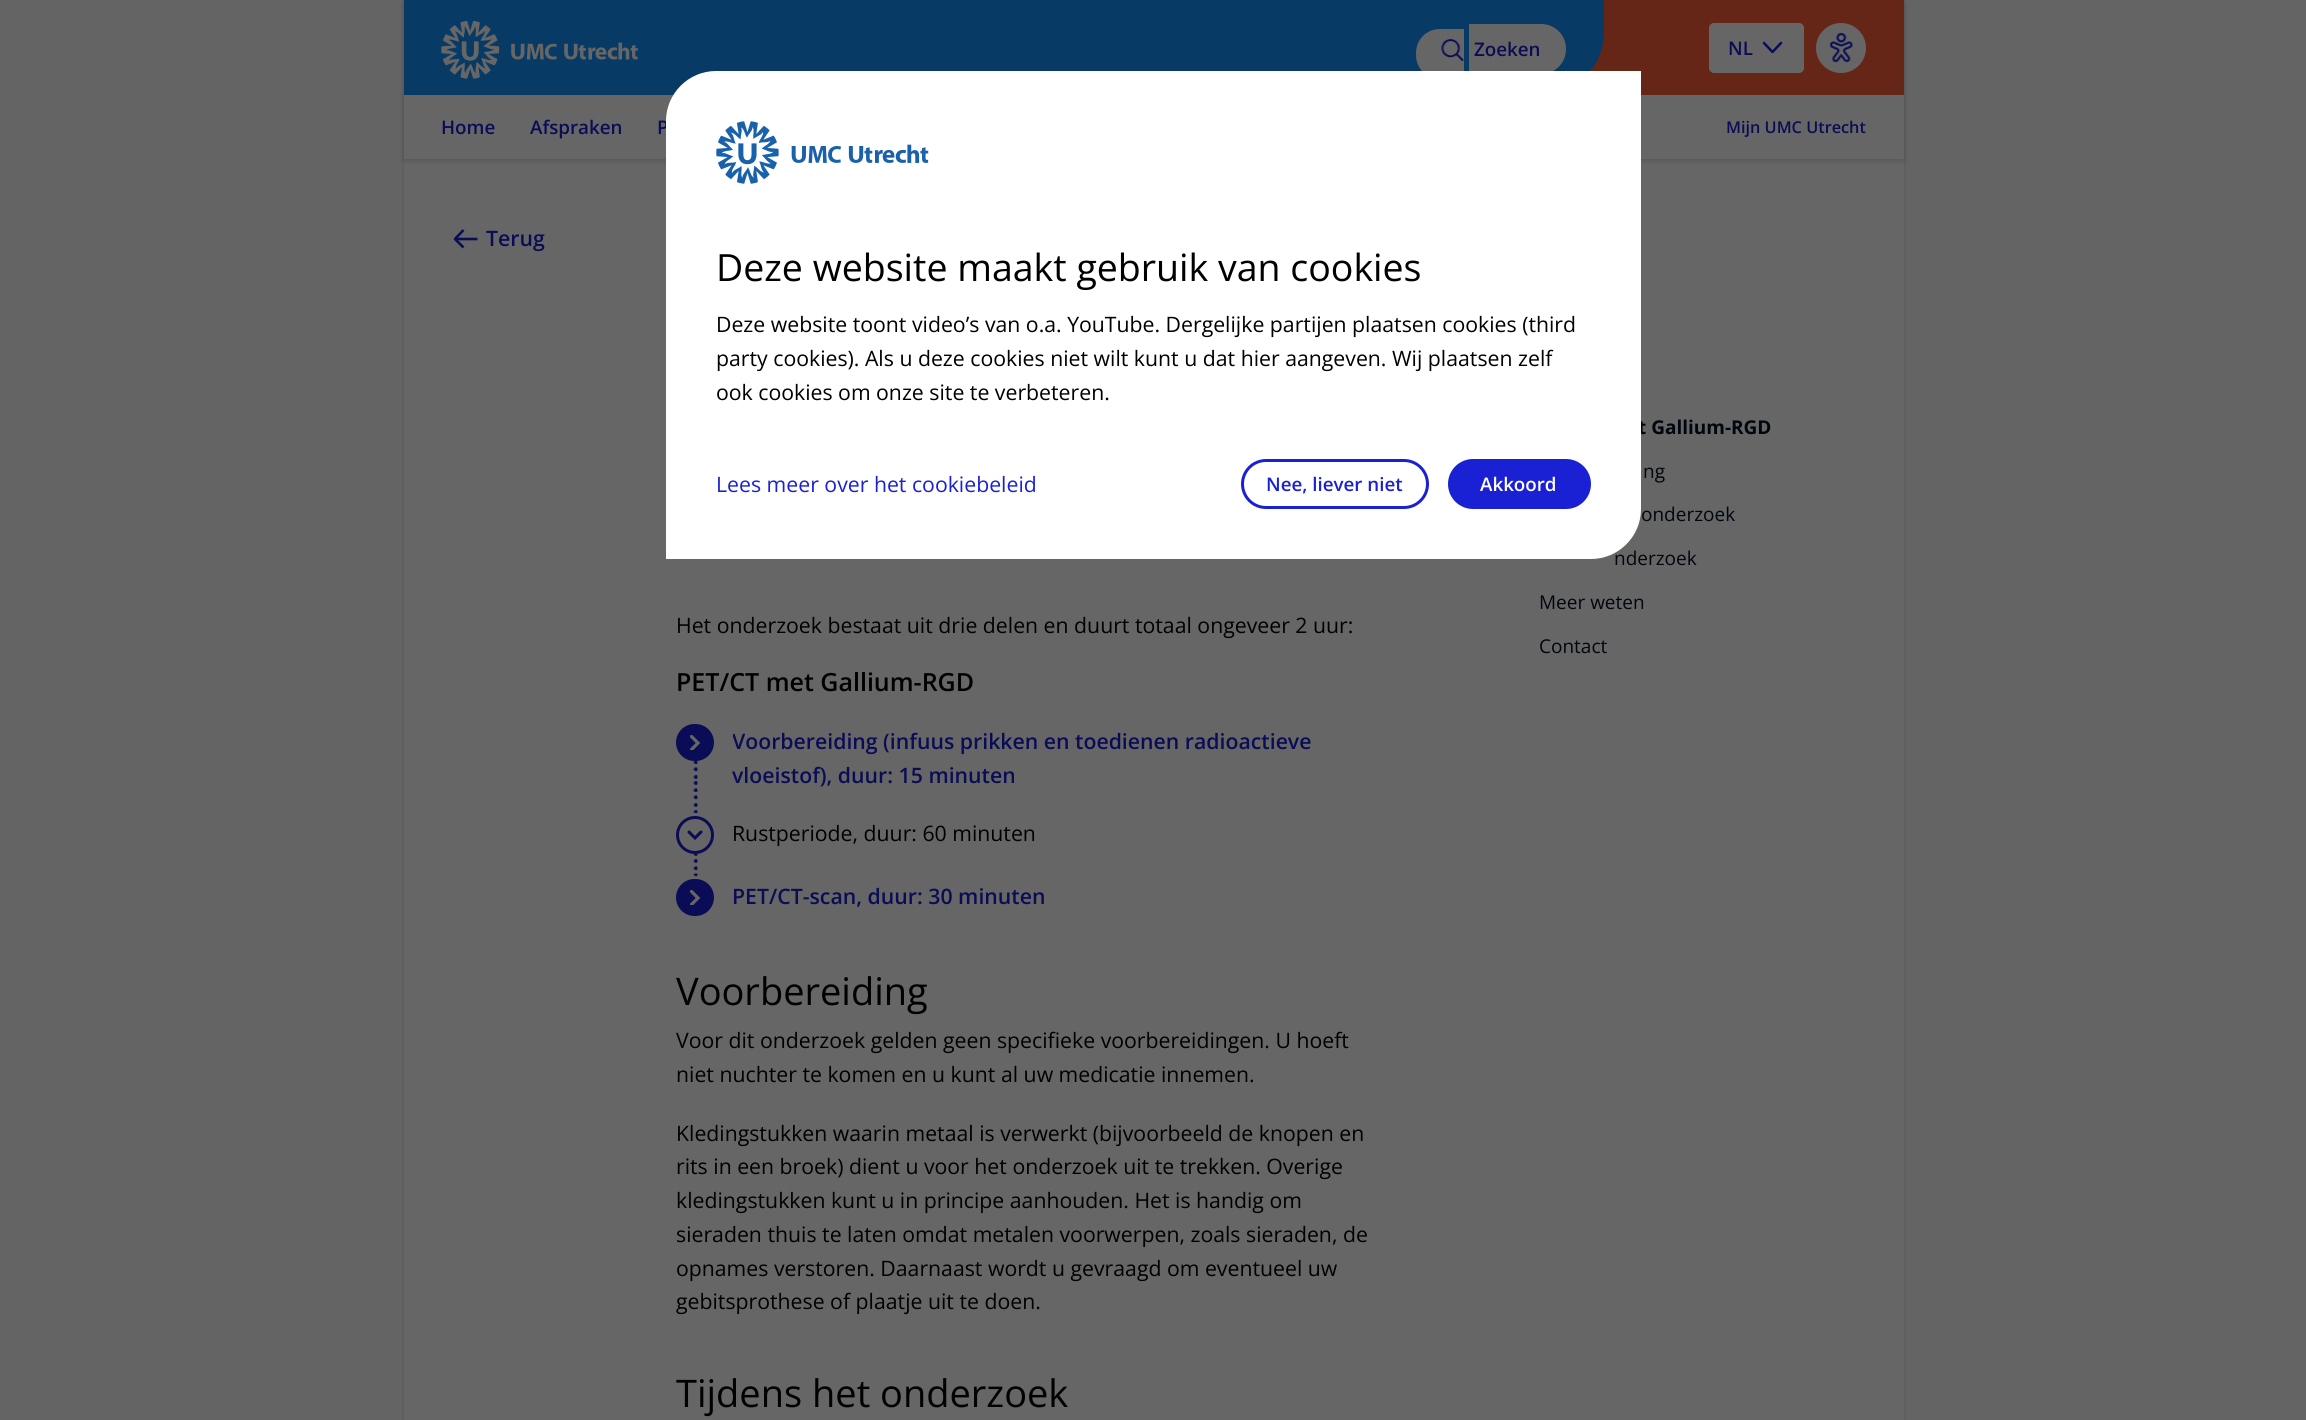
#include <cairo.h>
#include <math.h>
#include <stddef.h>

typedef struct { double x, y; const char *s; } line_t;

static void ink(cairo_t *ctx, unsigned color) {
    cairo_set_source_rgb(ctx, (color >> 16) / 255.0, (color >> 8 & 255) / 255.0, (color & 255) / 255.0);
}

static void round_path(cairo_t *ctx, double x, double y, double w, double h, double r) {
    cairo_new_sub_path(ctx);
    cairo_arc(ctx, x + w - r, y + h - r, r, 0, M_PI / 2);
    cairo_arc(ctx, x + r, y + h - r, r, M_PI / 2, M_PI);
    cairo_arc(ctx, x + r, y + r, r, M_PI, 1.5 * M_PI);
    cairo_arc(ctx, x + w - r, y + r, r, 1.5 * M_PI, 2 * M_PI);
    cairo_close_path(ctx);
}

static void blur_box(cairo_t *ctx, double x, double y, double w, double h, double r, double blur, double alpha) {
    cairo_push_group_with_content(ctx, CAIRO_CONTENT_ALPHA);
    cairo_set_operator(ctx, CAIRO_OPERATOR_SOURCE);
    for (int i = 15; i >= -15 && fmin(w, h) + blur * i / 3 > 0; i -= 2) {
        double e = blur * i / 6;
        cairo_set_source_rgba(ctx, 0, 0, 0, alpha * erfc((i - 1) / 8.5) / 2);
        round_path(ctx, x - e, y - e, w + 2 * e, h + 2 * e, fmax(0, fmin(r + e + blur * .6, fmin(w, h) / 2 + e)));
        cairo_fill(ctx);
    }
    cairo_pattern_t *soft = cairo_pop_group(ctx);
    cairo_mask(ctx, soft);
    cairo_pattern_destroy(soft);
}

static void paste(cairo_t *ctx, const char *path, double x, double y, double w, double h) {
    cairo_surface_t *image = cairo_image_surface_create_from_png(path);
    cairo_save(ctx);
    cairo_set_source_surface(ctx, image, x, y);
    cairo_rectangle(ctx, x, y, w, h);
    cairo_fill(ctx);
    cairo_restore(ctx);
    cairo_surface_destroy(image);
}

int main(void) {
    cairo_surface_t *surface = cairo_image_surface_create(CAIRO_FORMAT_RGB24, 2306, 1420);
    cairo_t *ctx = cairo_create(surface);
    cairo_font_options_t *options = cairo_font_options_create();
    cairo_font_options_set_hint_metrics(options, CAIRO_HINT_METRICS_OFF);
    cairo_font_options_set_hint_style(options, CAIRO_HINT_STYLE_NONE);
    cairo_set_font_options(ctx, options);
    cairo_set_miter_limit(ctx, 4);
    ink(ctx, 0x646464);
    cairo_paint(ctx);
    ink(ctx, 0x000000);
    blur_box(ctx, 404, 0, 1500, 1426, 0, 2, 0.15);
    ink(ctx, 0x666666);
    cairo_rectangle(ctx, 404, 159, 1500, 1261);
    cairo_fill(ctx);
    ink(ctx, 0x000000);
    blur_box(ctx, 404, 3, 1500, 158, 0, 2.5, 0.15);
    ink(ctx, 0x652617);
    cairo_rectangle(ctx, 1590, 0, 314, 95);
    cairo_fill(ctx);
    ink(ctx, 0x073A64);
    cairo_new_path(ctx);
    cairo_move_to(ctx, 404, 0);
    cairo_line_to(ctx, 1604, 0);
    cairo_line_to(ctx, 1604, 32);
    cairo_curve_to(ctx, 1604, 67, 1576, 95, 1541, 95);
    cairo_line_to(ctx, 404, 95);
    cairo_close_path(ctx);
    cairo_fill(ctx);
    paste(ctx, "media/1.png", 441, 20, 197, 59);
    ink(ctx, 0x666666);
    cairo_new_path(ctx);
    cairo_move_to(ctx, 1440, 29);
    cairo_line_to(ctx, 1464, 29);
    cairo_line_to(ctx, 1464, 79);
    cairo_line_to(ctx, 1440, 79);
    cairo_curve_to(ctx, 1426.5, 79, 1416, 68.5, 1416, 55);
    cairo_line_to(ctx, 1416, 53);
    cairo_curve_to(ctx, 1416, 39.5, 1426.5, 29, 1440, 29);
    cairo_close_path(ctx);
    cairo_fill(ctx);
    paste(ctx, "media/2.png", 1441, 39, 23, 22);
    cairo_new_path(ctx);
    cairo_move_to(ctx, 1469, 24);
    cairo_line_to(ctx, 1541, 24);
    cairo_curve_to(ctx, 1555, 24, 1566, 35, 1566, 49);
    cairo_curve_to(ctx, 1566, 63, 1555, 74, 1541, 74);
    cairo_line_to(ctx, 1469, 74);
    cairo_close_path(ctx);
    cairo_fill(ctx);
    cairo_select_font_face(ctx, "Open Sans SemiBold", CAIRO_FONT_SLANT_NORMAL, CAIRO_FONT_WEIGHT_NORMAL);
    cairo_set_font_size(ctx, 18.75);
    ink(ctx, 0x0A0D55);
    cairo_move_to(ctx, 1474, 56);
    cairo_show_text(ctx, "Zoeken");
    ink(ctx, 0x666666);
    round_path(ctx, 1709, 23, 95, 50, 5);
    cairo_fill(ctx);
    cairo_new_path(ctx);
    cairo_move_to(ctx, 1781, 43);
    cairo_line_to(ctx, 1772.5, 52);
    cairo_line_to(ctx, 1764, 43);
    ink(ctx, 0x0A0D55);
    cairo_set_line_width(ctx, 2.5);
    cairo_set_line_cap(ctx, CAIRO_LINE_CAP_ROUND);
    cairo_set_line_join(ctx, CAIRO_LINE_JOIN_ROUND);
    cairo_stroke(ctx);
    cairo_move_to(ctx, 1728, 55);
    cairo_show_text(ctx, "NL");
    ink(ctx, 0x666666);
    cairo_new_path(ctx);
    cairo_arc(ctx, 1841, 48, 25, 0, 2 * M_PI);
    cairo_fill(ctx);
    paste(ctx, "media/3.png", 1829, 32, 25, 31);
    cairo_rectangle(ctx, 404, 95, 1500, 64);
    cairo_fill(ctx);
    ink(ctx, 0x0A0D55);
    {
        static const line_t items[] = {
            {441, 134, "Home"},
            {530, 134, "Afspraken"},
            {657, 134, "P"},
        };
        for (size_t i = 0; i < sizeof items / sizeof *items; i++) {
            cairo_move_to(ctx, items[i].x, items[i].y);
            cairo_show_text(ctx, items[i].s);
        }
    }
    cairo_set_font_size(ctx, 16.25);
    cairo_move_to(ctx, 1726, 133);
    cairo_show_text(ctx, "Mijn UMC Utrecht");
    cairo_new_path(ctx);
    cairo_move_to(ctx, 463.5, 230);
    cairo_line_to(ctx, 455, 239);
    cairo_line_to(ctx, 463.5, 247.5);
    cairo_set_line_width(ctx, 2.6);
    cairo_set_line_cap(ctx, CAIRO_LINE_CAP_BUTT);
    cairo_stroke(ctx);
    cairo_new_path(ctx);
    cairo_move_to(ctx, 455, 239);
    cairo_line_to(ctx, 477.5, 239);
    cairo_set_line_join(ctx, CAIRO_LINE_JOIN_MITER);
    cairo_stroke(ctx);
    cairo_set_font_size(ctx, 21.25);
    cairo_move_to(ctx, 486, 246);
    cairo_show_text(ctx, "Terug");
    cairo_select_font_face(ctx, "Open Sans", CAIRO_FONT_SLANT_NORMAL, CAIRO_FONT_WEIGHT_BOLD);
    cairo_set_font_size(ctx, 19);
    ink(ctx, 0x00060D);
    cairo_move_to(ctx, 1638, 434);
    cairo_show_text(ctx, "t Gallium-RGD");
    cairo_select_font_face(ctx, "Open Sans", CAIRO_FONT_SLANT_NORMAL, CAIRO_FONT_WEIGHT_NORMAL);
    {
        static const line_t items[] = {
            {1643, 478, "ng"},
            {1641, 521, "onderzoek"},
            {1614, 565, "nderzoek"},
            {1539, 609, "Meer weten"},
            {1539, 653, "Contact"},
        };
        for (size_t i = 0; i < sizeof items / sizeof *items; i++) {
            cairo_move_to(ctx, items[i].x, items[i].y);
            cairo_show_text(ctx, items[i].s);
        }
    }
    cairo_set_font_size(ctx, 21.25);
    ink(ctx, 0x000000);
    cairo_move_to(ctx, 676, 633);
    cairo_show_text(ctx, "Het onderzoek bestaat uit drie delen en duurt totaal ongeveer 2 uur:");
    cairo_select_font_face(ctx, "Open Sans SemiBold", CAIRO_FONT_SLANT_NORMAL, CAIRO_FONT_WEIGHT_NORMAL);
    cairo_set_font_size(ctx, 25);
    cairo_move_to(ctx, 676, 691);
    cairo_show_text(ctx, "PET/CT met Gallium-RGD");
    paste(ctx, "media/4.png", 693, 760, 5, 57);
    ink(ctx, 0x0A0D55);
    round_path(ctx, 676, 724, 38, 37, 18.5);
    cairo_fill(ctx);
    cairo_save(ctx);
    cairo_rectangle(ctx, 690, 735, 11, 15);
    cairo_clip(ctx);
    cairo_new_path(ctx);
    cairo_move_to(ctx, 691.5, 749.5);
    cairo_line_to(ctx, 698, 743);
    cairo_line_to(ctx, 691.5, 736.5);
    ink(ctx, 0x666666);
    cairo_set_line_width(ctx, 3.2);
    cairo_set_line_cap(ctx, CAIRO_LINE_CAP_ROUND);
    cairo_stroke(ctx);
    cairo_restore(ctx);
    cairo_save(ctx);
    cairo_rectangle(ctx, 733, 724, 643, 67);
    cairo_clip(ctx);
    cairo_set_font_size(ctx, 21.25);
    cairo_move_to(ctx, 732, 749);
    cairo_show_text(ctx, "Voorbereiding (infuus prikken en toedienen radioactieve");
    cairo_restore(ctx);
    cairo_set_font_size(ctx, 21.25);
    cairo_move_to(ctx, 732, 783);
    cairo_show_text(ctx, "vloeistof), duur: 15 minuten");
    paste(ctx, "media/5.png", 693, 853, 5, 24);
    ink(ctx, 0x666666);
    cairo_arc(ctx, 695, 835, 19, 0, 2 * M_PI);
    cairo_fill(ctx);
    cairo_new_path(ctx);
    cairo_move_to(ctx, 689, 832);
    cairo_line_to(ctx, 695, 838);
    cairo_line_to(ctx, 701, 832);
    ink(ctx, 0x0A0D55);
    cairo_set_line_width(ctx, 3);
    cairo_set_line_cap(ctx, CAIRO_LINE_CAP_ROUND);
    cairo_stroke(ctx);
    cairo_arc(ctx, 695, 835, 17.5, 0, 2 * M_PI);
    cairo_set_line_cap(ctx, CAIRO_LINE_CAP_BUTT);
    cairo_stroke(ctx);
    cairo_select_font_face(ctx, "Open Sans", CAIRO_FONT_SLANT_NORMAL, CAIRO_FONT_WEIGHT_NORMAL);
    ink(ctx, 0x000000);
    cairo_move_to(ctx, 732, 841);
    cairo_show_text(ctx, "Rustperiode, duur: 60 minuten");
    ink(ctx, 0x0A0D55);
    round_path(ctx, 676, 879, 38, 37, 18.5);
    cairo_fill(ctx);
    cairo_save(ctx);
    cairo_rectangle(ctx, 690, 890, 11, 15);
    cairo_clip(ctx);
    cairo_new_path(ctx);
    cairo_move_to(ctx, 691.5, 904.5);
    cairo_line_to(ctx, 698, 898);
    cairo_line_to(ctx, 691.5, 891.5);
    ink(ctx, 0x666666);
    cairo_set_line_width(ctx, 3.2);
    cairo_set_line_cap(ctx, CAIRO_LINE_CAP_ROUND);
    cairo_stroke(ctx);
    cairo_restore(ctx);
    cairo_select_font_face(ctx, "Open Sans SemiBold", CAIRO_FONT_SLANT_NORMAL, CAIRO_FONT_WEIGHT_NORMAL);
    cairo_move_to(ctx, 732, 904);
    cairo_show_text(ctx, "PET/CT-scan, duur: 30 minuten");
    cairo_select_font_face(ctx, "Open Sans", CAIRO_FONT_SLANT_NORMAL, CAIRO_FONT_WEIGHT_NORMAL);
    cairo_set_font_size(ctx, 38);
    ink(ctx, 0x000000);
    cairo_move_to(ctx, 676, 1005);
    cairo_show_text(ctx, "Voorbereiding");
    cairo_set_font_size(ctx, 21.25);
    {
        static const line_t items[] = {
            {676, 1048, "Voor dit onderzoek gelden geen specifieke voorbereidingen. U hoeft"},
            {676, 1082, "niet nuchter te komen en u kunt al uw medicatie innemen."},
            {676, 1141, "Kledingstukken waarin metaal is verwerkt (bijvoorbeeld de knopen en"},
            {676, 1174, "rits in een broek) dient u voor het onderzoek uit te trekken. Overige"},
            {676, 1208, "kledingstukken kunt u in principe aanhouden. Het is handig om"},
            {676, 1242, "sieraden thuis te laten omdat metalen voorwerpen, zoals sieraden, de"},
            {676, 1276, "opnames verstoren. Daarnaast wordt u gevraagd om eventueel uw"},
            {676, 1309, "gebitsprothese of plaatje uit te doen."},
        };
        for (size_t i = 0; i < sizeof items / sizeof *items; i++) {
            cairo_move_to(ctx, items[i].x, items[i].y);
            cairo_show_text(ctx, items[i].s);
        }
    }
    cairo_set_font_size(ctx, 38);
    cairo_move_to(ctx, 676, 1407);
    cairo_show_text(ctx, "Tijdens het onderzoek");
    ink(ctx, 0xFFFFFF);
    cairo_new_path(ctx);
    cairo_move_to(ctx, 716, 71);
    cairo_line_to(ctx, 1641, 71);
    cairo_line_to(ctx, 1641, 509);
    cairo_curve_to(ctx, 1641, 536.5, 1618.5, 559, 1591, 559);
    cairo_line_to(ctx, 666, 559);
    cairo_line_to(ctx, 666, 121);
    cairo_curve_to(ctx, 666, 93.5, 688.5, 71, 716, 71);
    cairo_close_path(ctx);
    cairo_fill(ctx);
    paste(ctx, "media/6.png", 716, 121, 213, 63);
    cairo_set_font_size(ctx, 37.5);
    ink(ctx, 0x000000);
    cairo_move_to(ctx, 716, 281);
    cairo_show_text(ctx, "Deze website maakt gebruik van cookies");
    cairo_set_font_size(ctx, 21.25);
    {
        static const line_t items[] = {
            {716, 332, "Deze website toont video’s van o.a. YouTube. Dergelijke partijen plaatsen cookies (third"},
            {716, 366, "party cookies). Als u deze cookies niet wilt kunt u dat hier aangeven. Wij plaatsen zelf"},
            {716, 400, "ook cookies om onze site te verbeteren."},
        };
        for (size_t i = 0; i < sizeof items / sizeof *items; i++) {
            cairo_move_to(ctx, items[i].x, items[i].y);
            cairo_show_text(ctx, items[i].s);
        }
    }
    ink(ctx, 0x1A21D5);
    cairo_move_to(ctx, 716, 492);
    cairo_show_text(ctx, "Lees meer over het cookiebeleid");
    round_path(ctx, 1242.5, 460.5, 185, 47, 23.5);
    cairo_stroke(ctx);
    cairo_select_font_face(ctx, "Open Sans SemiBold", CAIRO_FONT_SLANT_NORMAL, CAIRO_FONT_WEIGHT_NORMAL);
    cairo_set_font_size(ctx, 18.75);
    cairo_move_to(ctx, 1266, 491);
    cairo_show_text(ctx, "Nee, liever niet");
    round_path(ctx, 1448, 459, 143, 50, 25);
    cairo_fill(ctx);
    ink(ctx, 0xFFFFFF);
    cairo_move_to(ctx, 1480, 491);
    cairo_show_text(ctx, "Akkoord");
    cairo_surface_write_to_png(surface, "image.png");
    cairo_font_options_destroy(options);
    cairo_destroy(ctx);
    cairo_surface_destroy(surface);
    return 0;
}
